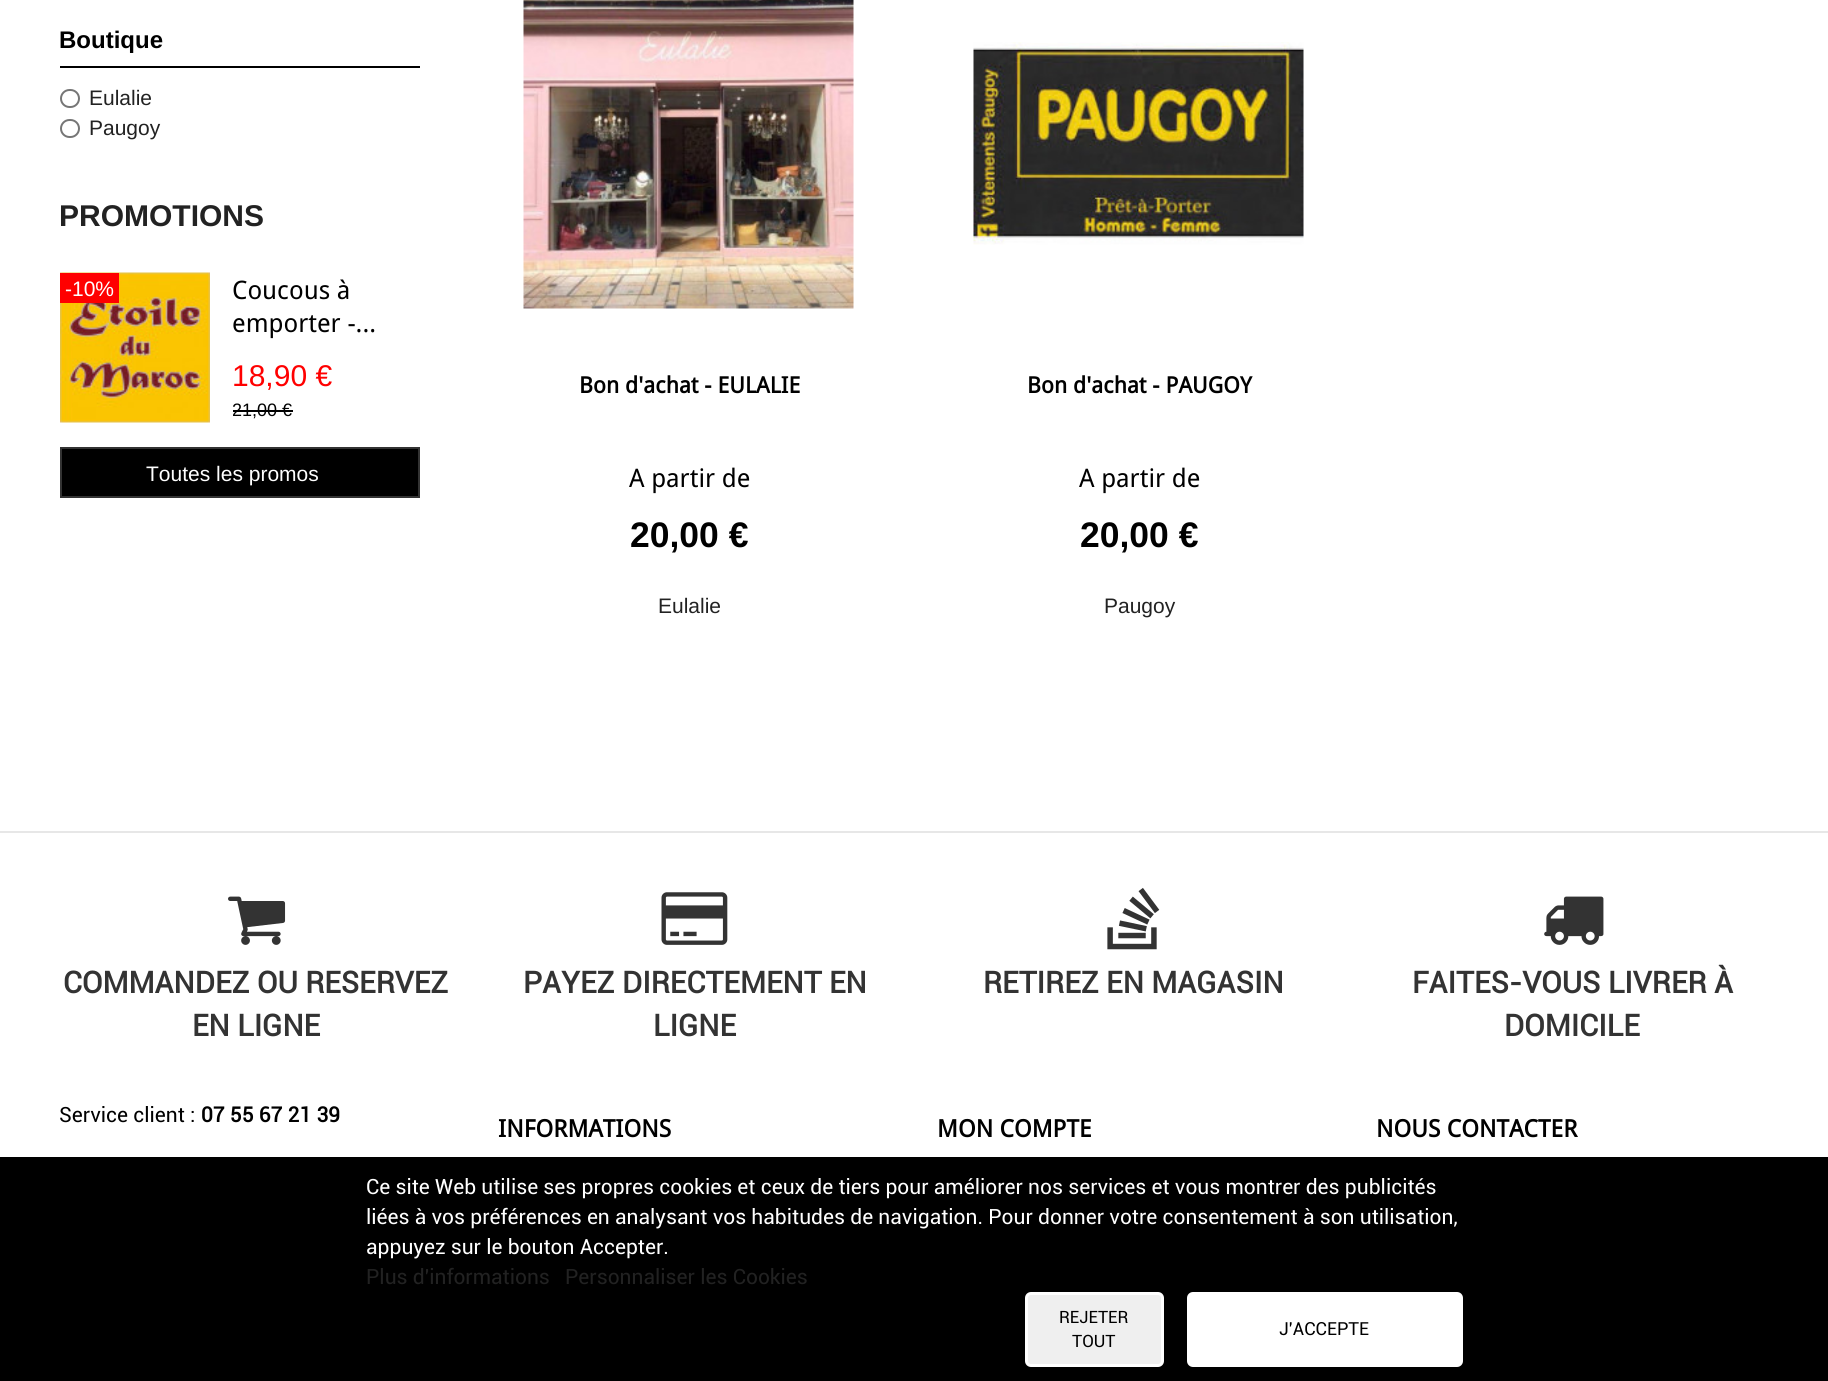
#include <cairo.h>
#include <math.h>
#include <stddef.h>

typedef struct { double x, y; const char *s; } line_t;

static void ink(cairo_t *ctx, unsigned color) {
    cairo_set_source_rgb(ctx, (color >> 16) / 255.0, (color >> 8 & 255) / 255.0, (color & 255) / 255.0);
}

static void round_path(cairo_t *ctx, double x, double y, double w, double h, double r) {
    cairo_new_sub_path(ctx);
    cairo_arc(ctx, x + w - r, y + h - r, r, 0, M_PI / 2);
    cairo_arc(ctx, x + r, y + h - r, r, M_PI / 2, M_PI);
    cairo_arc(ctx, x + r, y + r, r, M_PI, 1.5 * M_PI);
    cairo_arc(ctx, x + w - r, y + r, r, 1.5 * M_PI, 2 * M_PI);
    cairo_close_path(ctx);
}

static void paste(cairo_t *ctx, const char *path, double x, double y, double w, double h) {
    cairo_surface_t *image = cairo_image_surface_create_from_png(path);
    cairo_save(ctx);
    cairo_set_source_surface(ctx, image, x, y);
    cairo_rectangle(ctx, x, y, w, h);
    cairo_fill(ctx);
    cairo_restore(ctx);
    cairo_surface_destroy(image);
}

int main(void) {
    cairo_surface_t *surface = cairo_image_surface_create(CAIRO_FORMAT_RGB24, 1828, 1381);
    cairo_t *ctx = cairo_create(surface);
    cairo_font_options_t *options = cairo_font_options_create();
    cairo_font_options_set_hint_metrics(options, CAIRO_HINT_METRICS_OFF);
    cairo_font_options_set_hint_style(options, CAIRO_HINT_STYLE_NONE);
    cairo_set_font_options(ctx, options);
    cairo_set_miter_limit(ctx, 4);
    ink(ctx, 0xFFFFFF);
    cairo_paint(ctx);
    ink(ctx, 0x000000);
    cairo_rectangle(ctx, 60, 66, 360, 2);
    cairo_fill(ctx);
    cairo_select_font_face(ctx, "Liberation Sans", CAIRO_FONT_SLANT_NORMAL, CAIRO_FONT_WEIGHT_BOLD);
    cairo_set_font_size(ctx, 24);
    cairo_move_to(ctx, 59, 48);
    cairo_show_text(ctx, "Boutique");
    round_path(ctx, 61, 90, 18, 17, 8.5);
    ink(ctx, 0x767676);
    cairo_stroke(ctx);
    cairo_select_font_face(ctx, "Liberation Sans", CAIRO_FONT_SLANT_NORMAL, CAIRO_FONT_WEIGHT_NORMAL);
    cairo_set_font_size(ctx, 21);
    ink(ctx, 0x222222);
    cairo_move_to(ctx, 89, 105);
    cairo_show_text(ctx, "Eulalie");
    round_path(ctx, 61, 120, 18, 17, 8.5);
    ink(ctx, 0x767676);
    cairo_stroke(ctx);
    ink(ctx, 0x222222);
    cairo_move_to(ctx, 89, 135);
    cairo_show_text(ctx, "Paugoy");
    cairo_select_font_face(ctx, "Liberation Sans", CAIRO_FONT_SLANT_NORMAL, CAIRO_FONT_WEIGHT_BOLD);
    cairo_set_font_size(ctx, 30);
    cairo_move_to(ctx, 59, 226);
    cairo_show_text(ctx, "PROMOTIONS");
    paste(ctx, "media/1.png", 60, 272, 150, 151);
    ink(ctx, 0xFF0000);
    cairo_rectangle(ctx, 60, 273, 59, 30);
    cairo_fill(ctx);
    cairo_select_font_face(ctx, "Liberation Sans", CAIRO_FONT_SLANT_NORMAL, CAIRO_FONT_WEIGHT_NORMAL);
    cairo_set_font_size(ctx, 21);
    ink(ctx, 0xFFFFFF);
    cairo_move_to(ctx, 65, 296);
    cairo_show_text(ctx, "-10%");
    cairo_select_font_face(ctx, "Droid Sans", CAIRO_FONT_SLANT_NORMAL, CAIRO_FONT_WEIGHT_NORMAL);
    cairo_set_font_size(ctx, 25.5);
    ink(ctx, 0x000000);
    cairo_move_to(ctx, 232, 299);
    cairo_show_text(ctx, "Coucous à");
    cairo_move_to(ctx, 232, 332);
    cairo_show_text(ctx, "emporter -...");
    cairo_select_font_face(ctx, "Liberation Sans", CAIRO_FONT_SLANT_NORMAL, CAIRO_FONT_WEIGHT_NORMAL);
    cairo_set_font_size(ctx, 30);
    ink(ctx, 0xFF0000);
    cairo_move_to(ctx, 232, 386);
    cairo_show_text(ctx, "18,90 €");
    cairo_save(ctx);
    cairo_rectangle(ctx, 233, 273, 187, 150);
    cairo_clip(ctx);
    cairo_set_font_size(ctx, 18);
    ink(ctx, 0x000000);
    cairo_move_to(ctx, 232, 416);
    cairo_show_text(ctx, "21,00 €");
    cairo_restore(ctx);
    ink(ctx, 0x000000);
    cairo_rectangle(ctx, 233, 410, 60, 2);
    cairo_fill(ctx);
    cairo_rectangle(ctx, 61, 448, 358, 49);
    cairo_fill_preserve(ctx);
    ink(ctx, 0x333333);
    cairo_stroke(ctx);
    cairo_set_font_size(ctx, 21);
    ink(ctx, 0xFFFFFF);
    cairo_move_to(ctx, 146, 481);
    cairo_show_text(ctx, "Toutes les promos");
    paste(ctx, "media/2.png", 523, 0, 331, 309);
    cairo_select_font_face(ctx, "Droid Sans", CAIRO_FONT_SLANT_NORMAL, CAIRO_FONT_WEIGHT_BOLD);
    cairo_set_font_size(ctx, 22.5);
    ink(ctx, 0x000000);
    cairo_move_to(ctx, 579, 393);
    cairo_show_text(ctx, "Bon d'achat - EULALIE");
    cairo_select_font_face(ctx, "Droid Sans", CAIRO_FONT_SLANT_NORMAL, CAIRO_FONT_WEIGHT_NORMAL);
    cairo_set_font_size(ctx, 25.5);
    cairo_move_to(ctx, 629, 487);
    cairo_show_text(ctx, "A partir de");
    cairo_select_font_face(ctx, "Liberation Sans", CAIRO_FONT_SLANT_NORMAL, CAIRO_FONT_WEIGHT_BOLD);
    cairo_set_font_size(ctx, 35.5);
    cairo_move_to(ctx, 630, 547);
    cairo_show_text(ctx, "20,00 €");
    cairo_select_font_face(ctx, "Liberation Sans", CAIRO_FONT_SLANT_NORMAL, CAIRO_FONT_WEIGHT_NORMAL);
    cairo_set_font_size(ctx, 21);
    ink(ctx, 0x222222);
    cairo_move_to(ctx, 658, 613);
    cairo_show_text(ctx, "Eulalie");
    paste(ctx, "media/3.png", 973, 42, 331, 203);
    cairo_select_font_face(ctx, "Droid Sans", CAIRO_FONT_SLANT_NORMAL, CAIRO_FONT_WEIGHT_BOLD);
    cairo_set_font_size(ctx, 22.5);
    ink(ctx, 0x000000);
    cairo_move_to(ctx, 1027, 393);
    cairo_show_text(ctx, "Bon d'achat - PAUGOY");
    cairo_select_font_face(ctx, "Droid Sans", CAIRO_FONT_SLANT_NORMAL, CAIRO_FONT_WEIGHT_NORMAL);
    cairo_set_font_size(ctx, 25.5);
    cairo_move_to(ctx, 1079, 487);
    cairo_show_text(ctx, "A partir de");
    cairo_select_font_face(ctx, "Liberation Sans", CAIRO_FONT_SLANT_NORMAL, CAIRO_FONT_WEIGHT_BOLD);
    cairo_set_font_size(ctx, 35.5);
    cairo_move_to(ctx, 1080, 547);
    cairo_show_text(ctx, "20,00 €");
    cairo_select_font_face(ctx, "Liberation Sans", CAIRO_FONT_SLANT_NORMAL, CAIRO_FONT_WEIGHT_NORMAL);
    cairo_set_font_size(ctx, 21);
    ink(ctx, 0x222222);
    cairo_move_to(ctx, 1104, 613);
    cairo_show_text(ctx, "Paugoy");
    ink(ctx, 0xE7E7E7);
    cairo_rectangle(ctx, 0, 831, 1828, 2);
    cairo_fill(ctx);
    paste(ctx, "media/4.png", 228, 896, 58, 49);
    cairo_select_font_face(ctx, "Roboto", CAIRO_FONT_SLANT_NORMAL, CAIRO_FONT_WEIGHT_BOLD);
    cairo_set_font_size(ctx, 30);
    ink(ctx, 0x333333);
    cairo_move_to(ctx, 63, 993);
    cairo_show_text(ctx, "COMMANDEZ OU RESERVEZ");
    cairo_move_to(ctx, 192, 1036);
    cairo_show_text(ctx, "EN LIGNE");
    paste(ctx, "media/5.png", 661, 892, 67, 53);
    cairo_move_to(ctx, 523, 993);
    cairo_show_text(ctx, "PAYEZ DIRECTEMENT EN");
    cairo_move_to(ctx, 653, 1036);
    cairo_show_text(ctx, "LIGNE");
    paste(ctx, "media/6.png", 1107, 887, 53, 63);
    cairo_move_to(ctx, 983, 993);
    cairo_show_text(ctx, "RETIREZ EN MAGASIN");
    paste(ctx, "media/7.png", 1544, 896, 60, 49);
    cairo_move_to(ctx, 1412, 993);
    cairo_show_text(ctx, "FAITES-VOUS LIVRER À");
    cairo_move_to(ctx, 1504, 1036);
    cairo_show_text(ctx, "DOMICILE");
    cairo_select_font_face(ctx, "Roboto", CAIRO_FONT_SLANT_NORMAL, CAIRO_FONT_WEIGHT_NORMAL);
    cairo_set_font_size(ctx, 21);
    ink(ctx, 0x000000);
    cairo_move_to(ctx, 59, 1122);
    cairo_show_text(ctx, "Service client :");
    cairo_select_font_face(ctx, "Roboto", CAIRO_FONT_SLANT_NORMAL, CAIRO_FONT_WEIGHT_BOLD);
    cairo_move_to(ctx, 201, 1122);
    cairo_show_text(ctx, "07 55 67 21 39");
    cairo_select_font_face(ctx, "Droid Sans", CAIRO_FONT_SLANT_NORMAL, CAIRO_FONT_WEIGHT_BOLD);
    cairo_set_font_size(ctx, 24);
    {
        static const line_t items[] = {
            {498, 1137, "INFORMATIONS"},
            {937, 1137, "MON COMPTE"},
            {1376, 1137, "NOUS CONTACTER"},
        };
        for (size_t i = 0; i < sizeof items / sizeof *items; i++) {
            cairo_move_to(ctx, items[i].x, items[i].y);
            cairo_show_text(ctx, items[i].s);
        }
    }
    cairo_rectangle(ctx, 0, 1157, 1828, 224);
    cairo_fill(ctx);
    cairo_select_font_face(ctx, "Roboto", CAIRO_FONT_SLANT_NORMAL, CAIRO_FONT_WEIGHT_NORMAL);
    cairo_set_font_size(ctx, 21);
    ink(ctx, 0xFFFFFF);
    {
        static const line_t items[] = {
            {366, 1194, "Ce site Web utilise ses propres cookies et ceux de tiers pour améliorer nos services et vous montrer des publicités"},
            {366, 1224, "liées à vos préférences en analysant vos habitudes de navigation. Pour donner votre consentement à son utilisation,"},
            {366, 1254, "appuyez sur le bouton Accepter."},
        };
        for (size_t i = 0; i < sizeof items / sizeof *items; i++) {
            cairo_move_to(ctx, items[i].x, items[i].y);
            cairo_show_text(ctx, items[i].s);
        }
    }
    ink(ctx, 0x222222);
    cairo_move_to(ctx, 366, 1284);
    cairo_show_text(ctx, "Plus d'informations");
    cairo_move_to(ctx, 565, 1284);
    cairo_show_text(ctx, "Personnaliser les Cookies");
    ink(ctx, 0xEFEFEF);
    round_path(ctx, 1026.5, 1293.5, 136, 72, 4.5);
    cairo_fill_preserve(ctx);
    ink(ctx, 0xFFFFFF);
    cairo_set_line_width(ctx, 3);
    cairo_stroke(ctx);
    cairo_set_font_size(ctx, 17);
    ink(ctx, 0x000000);
    cairo_move_to(ctx, 1059, 1323);
    cairo_show_text(ctx, "REJETER");
    cairo_move_to(ctx, 1072, 1347);
    cairo_show_text(ctx, "TOUT");
    ink(ctx, 0xFFFFFF);
    round_path(ctx, 1188.5, 1293.5, 273, 72, 4.5);
    cairo_fill_preserve(ctx);
    cairo_stroke(ctx);
    cairo_set_font_size(ctx, 18);
    ink(ctx, 0x000000);
    cairo_move_to(ctx, 1279, 1335);
    cairo_show_text(ctx, "J'ACCEPTE");
    cairo_surface_write_to_png(surface, "image.png");
    cairo_font_options_destroy(options);
    cairo_destroy(ctx);
    cairo_surface_destroy(surface);
    return 0;
}
